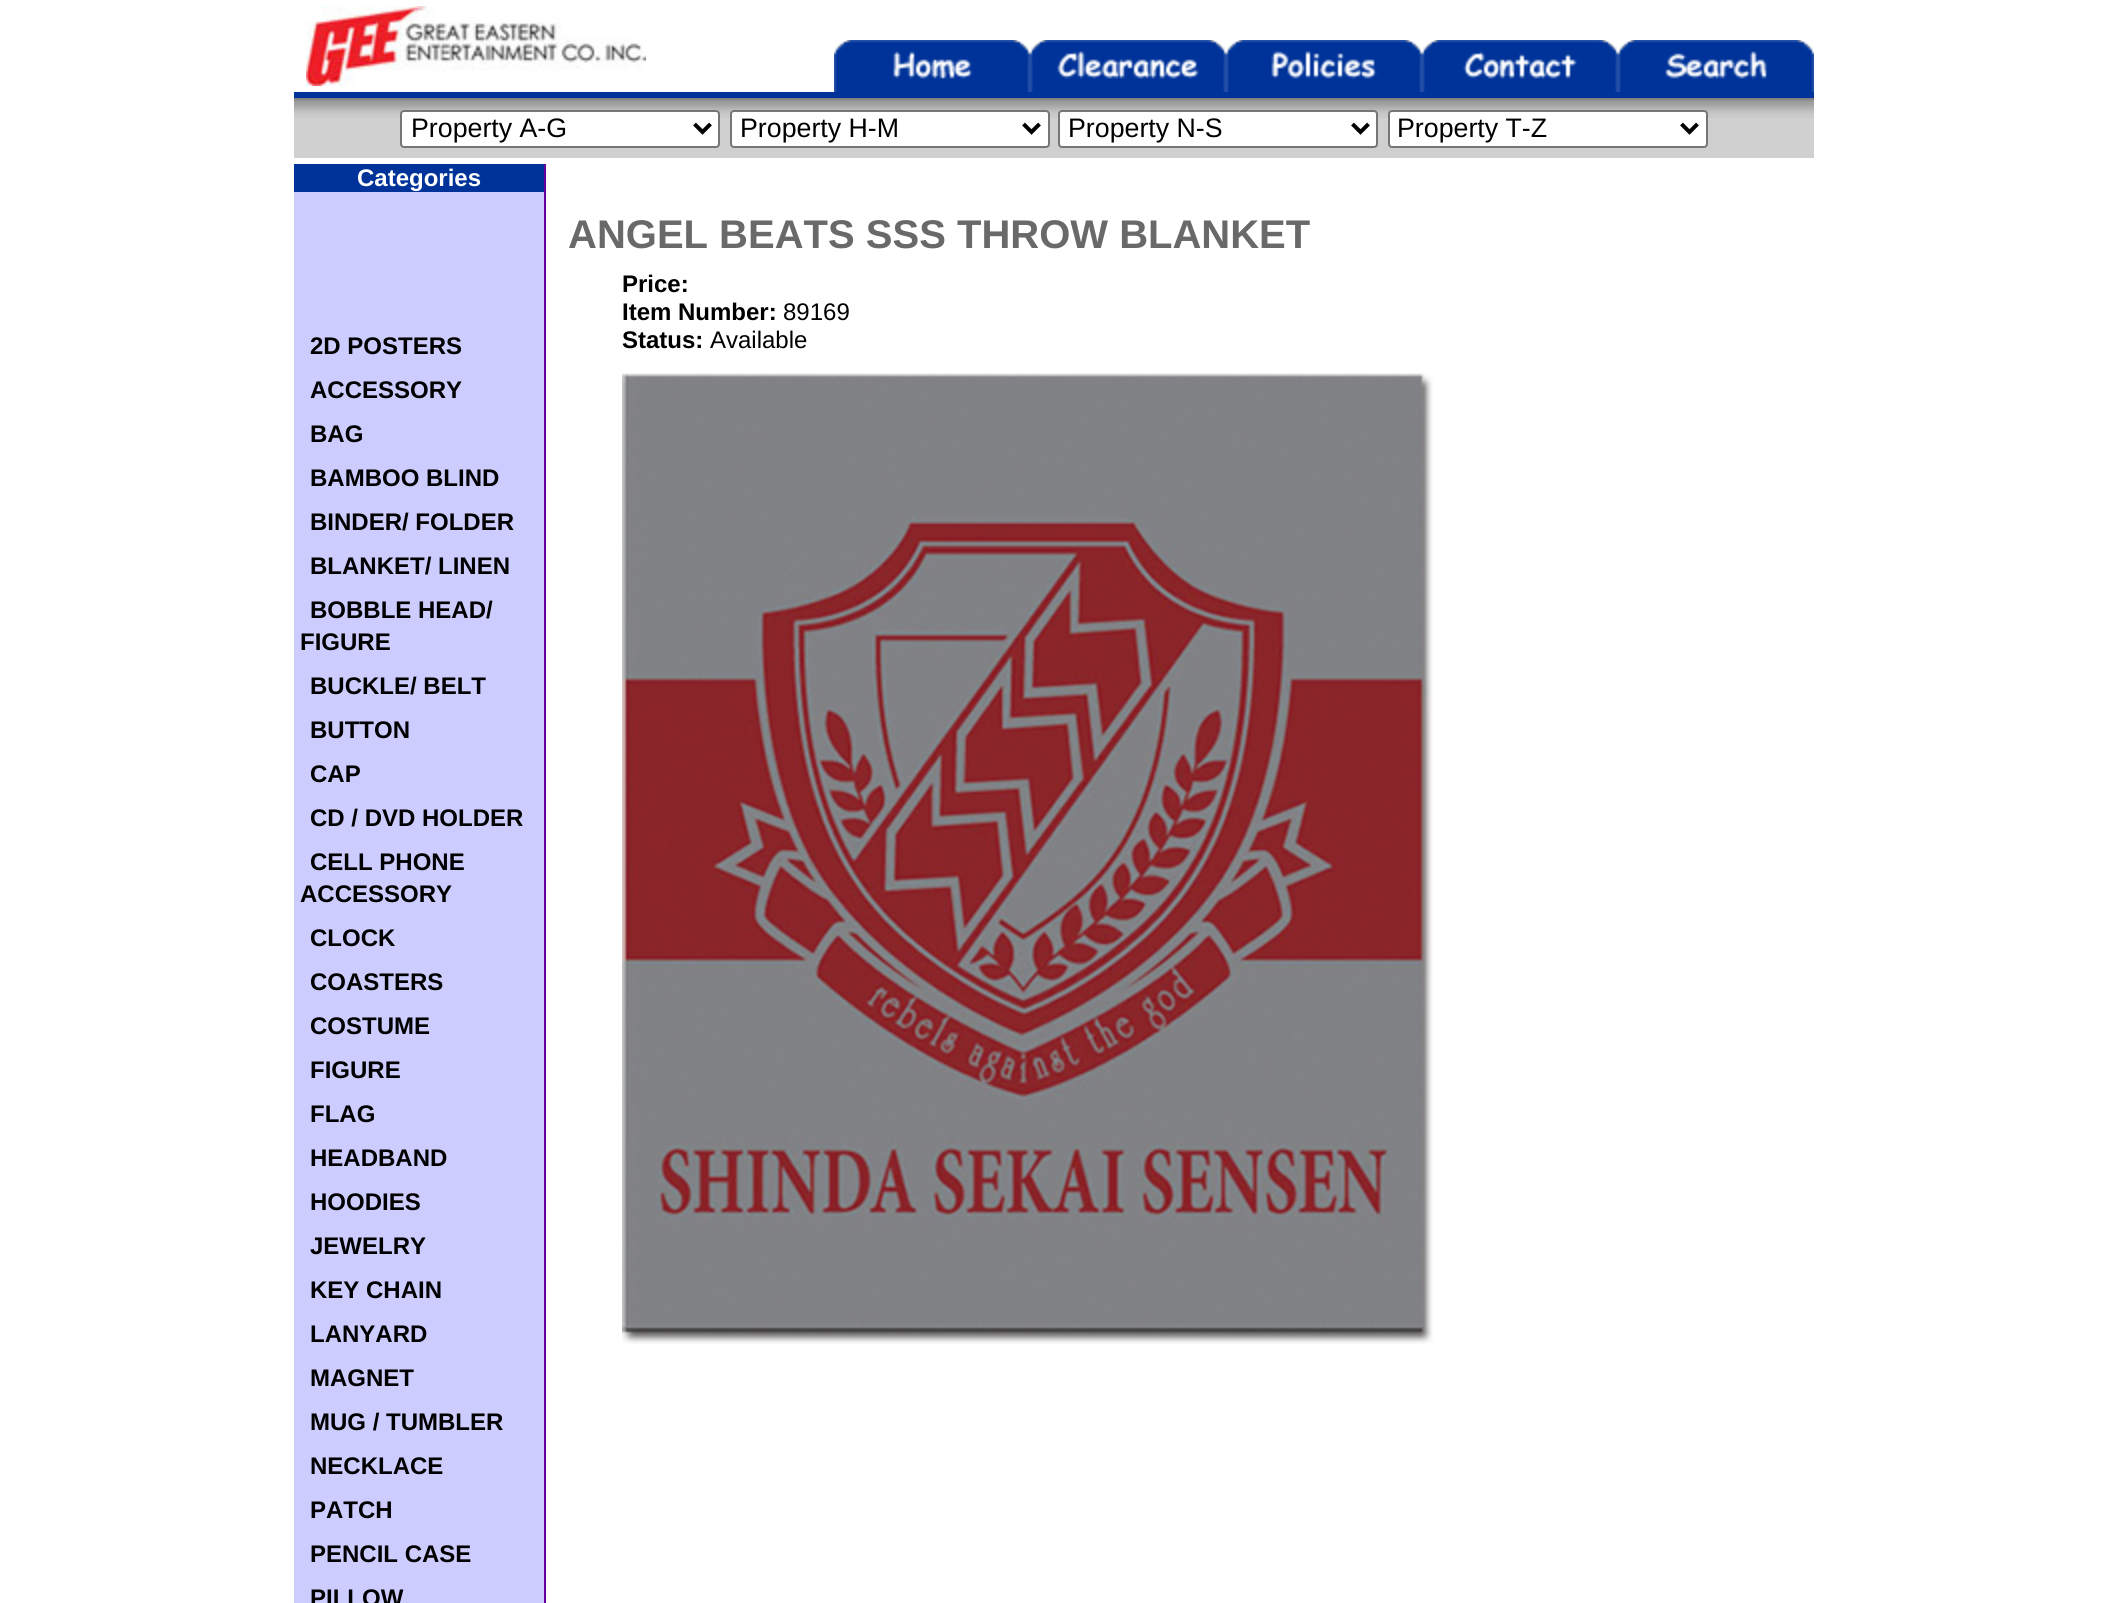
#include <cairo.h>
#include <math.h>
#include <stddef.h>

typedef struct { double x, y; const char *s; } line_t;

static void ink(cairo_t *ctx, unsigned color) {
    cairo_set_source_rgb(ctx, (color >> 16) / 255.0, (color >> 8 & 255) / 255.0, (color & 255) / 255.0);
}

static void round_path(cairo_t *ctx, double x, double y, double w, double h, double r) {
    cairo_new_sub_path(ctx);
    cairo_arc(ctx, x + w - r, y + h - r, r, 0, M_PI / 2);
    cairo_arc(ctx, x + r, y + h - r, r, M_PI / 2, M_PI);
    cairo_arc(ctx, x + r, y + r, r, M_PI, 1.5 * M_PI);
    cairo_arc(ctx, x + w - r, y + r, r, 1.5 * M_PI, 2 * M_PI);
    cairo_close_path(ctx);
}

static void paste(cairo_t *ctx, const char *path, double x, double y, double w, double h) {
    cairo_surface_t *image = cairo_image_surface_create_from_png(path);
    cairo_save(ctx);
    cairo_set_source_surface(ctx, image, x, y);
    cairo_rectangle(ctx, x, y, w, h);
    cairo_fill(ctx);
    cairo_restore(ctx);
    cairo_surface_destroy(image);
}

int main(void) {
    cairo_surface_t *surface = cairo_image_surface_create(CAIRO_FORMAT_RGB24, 2107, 1603);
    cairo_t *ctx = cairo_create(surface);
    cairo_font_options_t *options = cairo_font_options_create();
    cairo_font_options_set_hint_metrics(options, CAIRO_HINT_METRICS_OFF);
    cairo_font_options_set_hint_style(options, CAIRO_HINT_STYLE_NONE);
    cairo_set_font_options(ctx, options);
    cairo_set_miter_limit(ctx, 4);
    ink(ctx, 0xFFFFFF);
    cairo_paint(ctx);
    paste(ctx, "media/1.png", 306, 6, 340, 80);
    paste(ctx, "media/2.png", 834, 40, 196, 52);
    paste(ctx, "media/3.png", 1030, 40, 196, 52);
    paste(ctx, "media/4.png", 1226, 40, 196, 52);
    paste(ctx, "media/5.png", 1422, 40, 196, 52);
    paste(ctx, "media/6.png", 1618, 40, 196, 52);
    ink(ctx, 0x003399);
    cairo_rectangle(ctx, 294, 92, 1520, 6);
    cairo_fill(ctx);
    ink(ctx, 0xD0D0D0);
    cairo_rectangle(ctx, 294, 118, 1520, 40);
    cairo_fill(ctx);
    paste(ctx, "media/7.png", 294, 98, 1520, 20);
    ink(ctx, 0xFFFFFF);
    round_path(ctx, 401, 111, 318, 36, 3);
    cairo_fill_preserve(ctx);
    ink(ctx, 0x767676);
    cairo_stroke(ctx);
    cairo_new_path(ctx);
    cairo_move_to(ctx, 694.5, 124);
    cairo_line_to(ctx, 702.5, 132);
    cairo_line_to(ctx, 710.5, 124);
    ink(ctx, 0x000000);
    cairo_set_line_width(ctx, 4);
    cairo_stroke(ctx);
    cairo_select_font_face(ctx, "Liberation Sans", CAIRO_FONT_SLANT_NORMAL, CAIRO_FONT_WEIGHT_NORMAL);
    cairo_set_font_size(ctx, 26.75);
    cairo_move_to(ctx, 411, 137);
    cairo_show_text(ctx, "Property A-G");
    ink(ctx, 0xFFFFFF);
    round_path(ctx, 731, 111, 318, 36, 3);
    cairo_fill_preserve(ctx);
    ink(ctx, 0x767676);
    cairo_set_line_width(ctx, 2);
    cairo_stroke(ctx);
    cairo_new_path(ctx);
    cairo_move_to(ctx, 1023.5, 124);
    cairo_line_to(ctx, 1031.5, 132);
    cairo_line_to(ctx, 1039.5, 124);
    ink(ctx, 0x000000);
    cairo_set_line_width(ctx, 4);
    cairo_stroke(ctx);
    cairo_move_to(ctx, 740, 137);
    cairo_show_text(ctx, "Property H-M");
    ink(ctx, 0xFFFFFF);
    round_path(ctx, 1059, 111, 318, 36, 3);
    cairo_fill_preserve(ctx);
    ink(ctx, 0x767676);
    cairo_set_line_width(ctx, 2);
    cairo_stroke(ctx);
    cairo_new_path(ctx);
    cairo_move_to(ctx, 1352.5, 124);
    cairo_line_to(ctx, 1360.5, 132);
    cairo_line_to(ctx, 1368.5, 124);
    ink(ctx, 0x000000);
    cairo_set_line_width(ctx, 4);
    cairo_stroke(ctx);
    cairo_move_to(ctx, 1068, 137);
    cairo_show_text(ctx, "Property N-S");
    ink(ctx, 0xFFFFFF);
    round_path(ctx, 1389, 111, 318, 36, 3);
    cairo_fill_preserve(ctx);
    ink(ctx, 0x767676);
    cairo_set_line_width(ctx, 2);
    cairo_stroke(ctx);
    cairo_new_path(ctx);
    cairo_move_to(ctx, 1681.5, 124);
    cairo_line_to(ctx, 1689.5, 132);
    cairo_line_to(ctx, 1697.5, 124);
    ink(ctx, 0x000000);
    cairo_set_line_width(ctx, 4);
    cairo_stroke(ctx);
    cairo_move_to(ctx, 1397, 137);
    cairo_show_text(ctx, "Property T-Z");
    ink(ctx, 0xCCCCFF);
    cairo_rectangle(ctx, 294, 192, 250, 1411);
    cairo_fill(ctx);
    ink(ctx, 0x003399);
    cairo_rectangle(ctx, 294, 164, 250, 28);
    cairo_fill(ctx);
    cairo_select_font_face(ctx, "Liberation Sans", CAIRO_FONT_SLANT_NORMAL, CAIRO_FONT_WEIGHT_BOLD);
    cairo_set_font_size(ctx, 24);
    ink(ctx, 0xFFFFFF);
    cairo_move_to(ctx, 357, 186);
    cairo_show_text(ctx, "Categories");
    ink(ctx, 0x000000);
    {
        static const line_t items[] = {
            {310, 354, "2D POSTERS"},
            {310, 398, "ACCESSORY"},
            {310, 442, "BAG"},
            {310, 486, "BAMBOO BLIND"},
            {310, 530, "BINDER/ FOLDER"},
            {310, 574, "BLANKET/ LINEN"},
            {310, 618, "BOBBLE HEAD/"},
            {300, 650, "FIGURE"},
            {310, 694, "BUCKLE/ BELT"},
            {310, 738, "BUTTON"},
            {310, 782, "CAP"},
            {310, 826, "CD / DVD HOLDER"},
            {310, 870, "CELL PHONE"},
            {300, 902, "ACCESSORY"},
            {310, 946, "CLOCK"},
            {310, 990, "COASTERS"},
            {310, 1034, "COSTUME"},
            {310, 1078, "FIGURE"},
            {310, 1122, "FLAG"},
            {310, 1166, "HEADBAND"},
            {310, 1210, "HOODIES"},
            {310, 1254, "JEWELRY"},
            {310, 1298, "KEY CHAIN"},
            {310, 1342, "LANYARD"},
            {310, 1386, "MAGNET"},
            {310, 1430, "MUG / TUMBLER"},
            {310, 1474, "NECKLACE"},
            {310, 1518, "PATCH"},
            {310, 1562, "PENCIL CASE"},
            {310, 1606, "PILLOW"},
        };
        for (size_t i = 0; i < sizeof items / sizeof *items; i++) {
            cairo_move_to(ctx, items[i].x, items[i].y);
            cairo_show_text(ctx, items[i].s);
        }
    }
    ink(ctx, 0x660099);
    cairo_rectangle(ctx, 544, 164, 2, 1439);
    cairo_fill(ctx);
    cairo_set_font_size(ctx, 40);
    ink(ctx, 0x696969);
    cairo_move_to(ctx, 568, 248);
    cairo_show_text(ctx, "ANGEL BEATS SSS THROW BLANKET");
    cairo_set_font_size(ctx, 24);
    ink(ctx, 0x000000);
    cairo_move_to(ctx, 622, 292);
    cairo_show_text(ctx, "Price:");
    cairo_move_to(ctx, 622, 320);
    cairo_show_text(ctx, "Item Number:");
    cairo_select_font_face(ctx, "Liberation Sans", CAIRO_FONT_SLANT_NORMAL, CAIRO_FONT_WEIGHT_NORMAL);
    cairo_move_to(ctx, 783, 320);
    cairo_show_text(ctx, "89169");
    cairo_select_font_face(ctx, "Liberation Sans", CAIRO_FONT_SLANT_NORMAL, CAIRO_FONT_WEIGHT_BOLD);
    cairo_move_to(ctx, 622, 348);
    cairo_show_text(ctx, "Status:");
    cairo_select_font_face(ctx, "Liberation Sans", CAIRO_FONT_SLANT_NORMAL, CAIRO_FONT_WEIGHT_NORMAL);
    cairo_move_to(ctx, 710, 348);
    cairo_show_text(ctx, "Available");
    paste(ctx, "media/8.png", 622, 373, 811, 971);
    cairo_surface_write_to_png(surface, "image.png");
    cairo_font_options_destroy(options);
    cairo_destroy(ctx);
    cairo_surface_destroy(surface);
    return 0;
}
